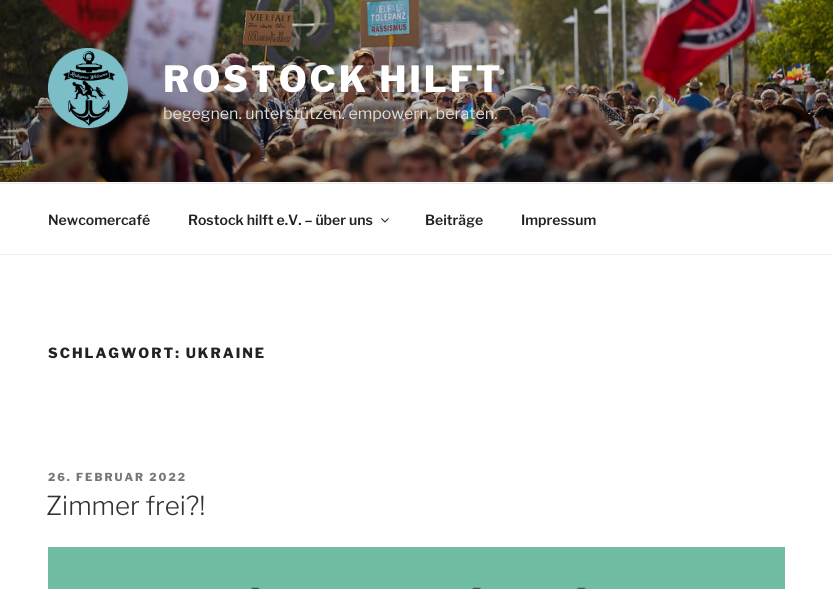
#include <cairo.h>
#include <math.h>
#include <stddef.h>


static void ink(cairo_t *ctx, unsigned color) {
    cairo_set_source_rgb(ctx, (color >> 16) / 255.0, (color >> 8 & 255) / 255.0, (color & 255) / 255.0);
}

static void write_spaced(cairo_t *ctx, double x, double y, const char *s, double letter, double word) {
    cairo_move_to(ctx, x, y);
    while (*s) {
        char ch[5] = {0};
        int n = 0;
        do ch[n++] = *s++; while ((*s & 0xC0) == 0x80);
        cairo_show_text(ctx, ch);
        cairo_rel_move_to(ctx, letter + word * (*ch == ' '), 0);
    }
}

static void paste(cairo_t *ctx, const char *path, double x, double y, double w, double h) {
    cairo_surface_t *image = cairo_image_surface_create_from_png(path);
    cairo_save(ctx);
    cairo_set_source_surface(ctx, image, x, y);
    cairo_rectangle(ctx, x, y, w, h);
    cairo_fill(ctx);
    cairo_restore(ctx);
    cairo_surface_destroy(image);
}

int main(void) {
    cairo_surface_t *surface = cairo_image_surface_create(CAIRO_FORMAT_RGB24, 833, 589);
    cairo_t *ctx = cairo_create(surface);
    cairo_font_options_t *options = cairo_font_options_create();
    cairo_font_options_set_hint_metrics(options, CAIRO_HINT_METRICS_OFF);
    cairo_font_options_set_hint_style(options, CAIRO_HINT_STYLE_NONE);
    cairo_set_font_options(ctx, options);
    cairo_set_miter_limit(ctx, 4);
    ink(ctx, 0xFFFFFF);
    cairo_paint(ctx);
    ink(ctx, 0xFAFAFA);
    cairo_rectangle(ctx, 0, 182, 833, 1);
    cairo_fill(ctx);
    paste(ctx, "media/1.png", 0, 0, 833, 182);
    paste(ctx, "media/2.png", 48, 48, 80, 80);
    cairo_select_font_face(ctx, "Libre Franklin Thin", CAIRO_FONT_SLANT_NORMAL, CAIRO_FONT_WEIGHT_NORMAL);
    cairo_set_font_size(ctx, 36);
    ink(ctx, 0xFFFFFF);
    write_spaced(ctx, 163, 92, "ROSTOCK HILFT", 2.9, 0);
    cairo_select_font_face(ctx, "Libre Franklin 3 Thin", CAIRO_FONT_SLANT_NORMAL, CAIRO_FONT_WEIGHT_NORMAL);
    cairo_set_font_size(ctx, 16);
    ink(ctx, 0xDEDCDA);
    cairo_move_to(ctx, 163, 119);
    cairo_show_text(ctx, "begegnen. unterstützen. empowern. beraten.");
    ink(ctx, 0xEEEEEE);
    cairo_rectangle(ctx, 0, 183, 833, 1);
    cairo_fill(ctx);
    cairo_rectangle(ctx, 0, 254, 833, 1);
    cairo_fill(ctx);
    cairo_select_font_face(ctx, "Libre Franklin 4 Thin", CAIRO_FONT_SLANT_NORMAL, CAIRO_FONT_WEIGHT_NORMAL);
    cairo_set_font_size(ctx, 14);
    ink(ctx, 0x222222);
    cairo_move_to(ctx, 48, 225);
    cairo_show_text(ctx, "Newcomercafé");
    cairo_move_to(ctx, 188, 225);
    cairo_show_text(ctx, "Rostock hilft e.V. – über uns");
    paste(ctx, "media/3.png", 381, 218, 8, 5);
    cairo_move_to(ctx, 425, 225);
    cairo_show_text(ctx, "Beiträge");
    cairo_move_to(ctx, 521, 225);
    cairo_show_text(ctx, "Impressum");
    cairo_select_font_face(ctx, "Libre Franklin Thin", CAIRO_FONT_SLANT_NORMAL, CAIRO_FONT_WEIGHT_NORMAL);
    write_spaced(ctx, 48, 358, "SCHLAGWORT: UKRAINE", 2, 0);
    cairo_set_font_size(ctx, 11);
    ink(ctx, 0x767676);
    write_spaced(ctx, 48, 481, "26. FEBRUAR 2022", 2, 0);
    cairo_select_font_face(ctx, "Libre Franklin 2 Thin", CAIRO_FONT_SLANT_NORMAL, CAIRO_FONT_WEIGHT_NORMAL);
    cairo_set_font_size(ctx, 26);
    ink(ctx, 0x333333);
    cairo_move_to(ctx, 46, 515);
    cairo_show_text(ctx, "Zimmer frei?!");
    paste(ctx, "media/4.png", 48, 547, 737, 42);
    cairo_surface_write_to_png(surface, "image.png");
    cairo_font_options_destroy(options);
    cairo_destroy(ctx);
    cairo_surface_destroy(surface);
    return 0;
}
